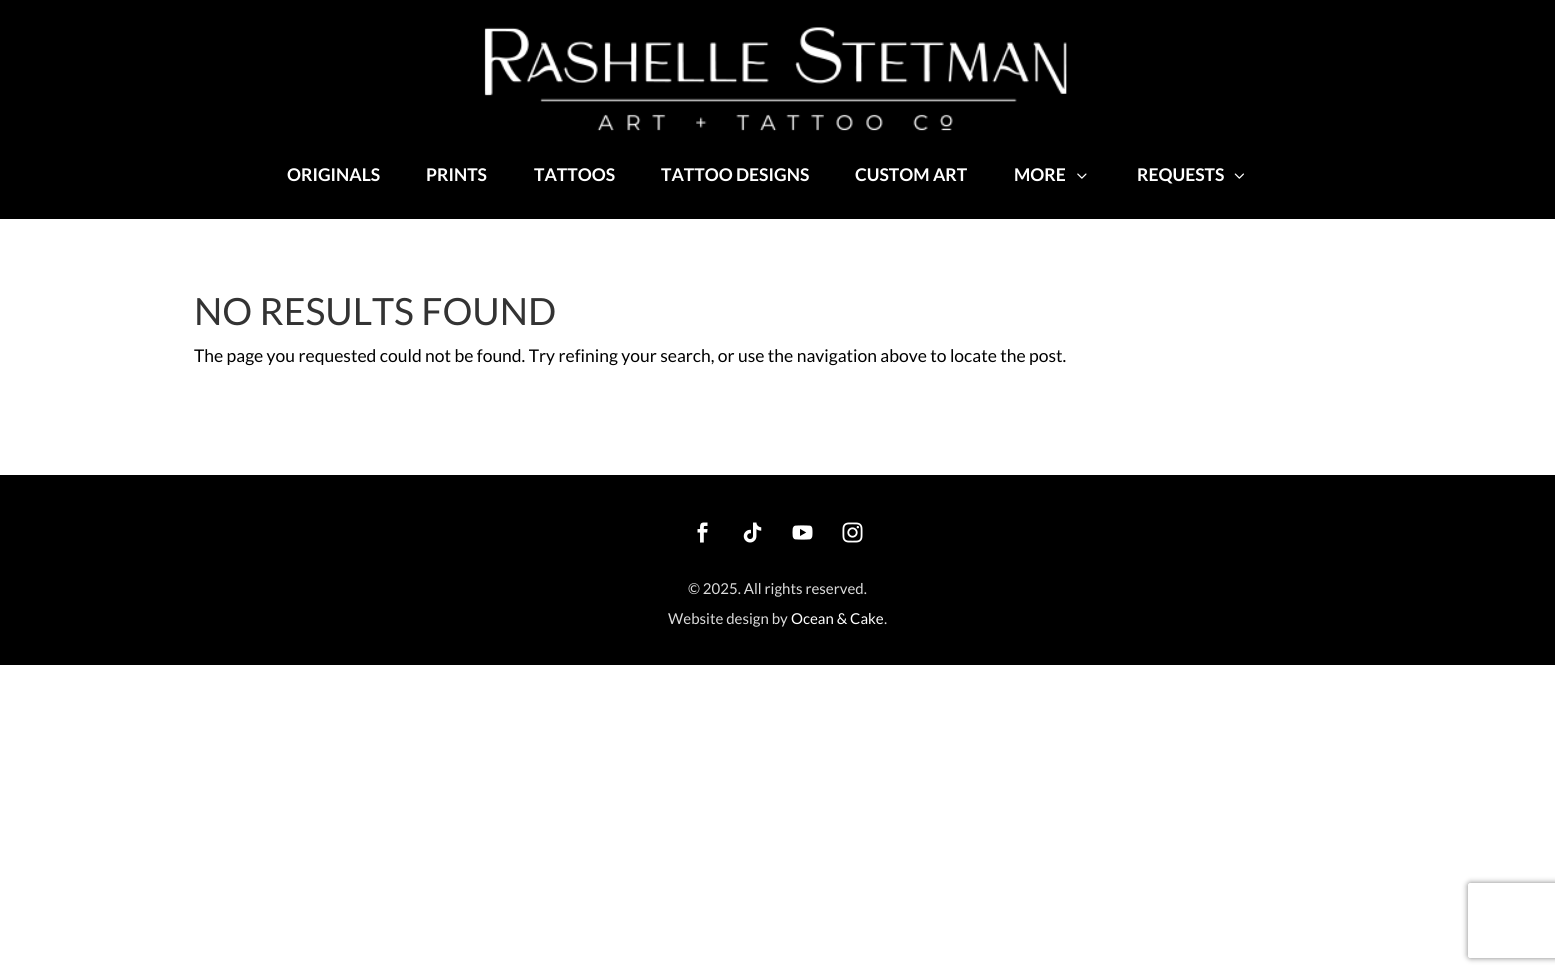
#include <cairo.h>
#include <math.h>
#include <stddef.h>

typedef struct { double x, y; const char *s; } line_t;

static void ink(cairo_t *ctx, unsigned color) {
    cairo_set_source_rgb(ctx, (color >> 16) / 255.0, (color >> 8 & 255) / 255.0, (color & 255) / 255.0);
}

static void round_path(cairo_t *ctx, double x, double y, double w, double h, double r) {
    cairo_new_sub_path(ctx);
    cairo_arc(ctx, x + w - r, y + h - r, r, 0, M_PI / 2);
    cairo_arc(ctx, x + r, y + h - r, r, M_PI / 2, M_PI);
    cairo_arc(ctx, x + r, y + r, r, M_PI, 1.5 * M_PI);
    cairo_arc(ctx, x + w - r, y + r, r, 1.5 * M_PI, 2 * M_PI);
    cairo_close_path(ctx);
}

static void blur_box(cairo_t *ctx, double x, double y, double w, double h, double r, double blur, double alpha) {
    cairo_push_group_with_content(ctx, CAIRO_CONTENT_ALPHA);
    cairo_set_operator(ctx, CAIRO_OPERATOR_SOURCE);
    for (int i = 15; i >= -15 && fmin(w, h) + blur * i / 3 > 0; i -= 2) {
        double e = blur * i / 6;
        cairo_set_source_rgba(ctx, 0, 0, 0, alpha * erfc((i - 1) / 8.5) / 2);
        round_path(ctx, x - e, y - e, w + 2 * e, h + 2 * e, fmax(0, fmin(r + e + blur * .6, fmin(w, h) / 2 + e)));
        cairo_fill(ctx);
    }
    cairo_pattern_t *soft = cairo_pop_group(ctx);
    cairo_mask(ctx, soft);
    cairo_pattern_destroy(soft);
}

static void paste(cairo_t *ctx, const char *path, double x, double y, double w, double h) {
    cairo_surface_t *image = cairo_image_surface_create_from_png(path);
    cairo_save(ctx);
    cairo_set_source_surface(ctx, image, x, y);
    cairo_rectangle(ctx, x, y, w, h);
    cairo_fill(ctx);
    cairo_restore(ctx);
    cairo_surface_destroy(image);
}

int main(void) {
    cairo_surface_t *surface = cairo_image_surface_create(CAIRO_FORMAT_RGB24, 1555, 974);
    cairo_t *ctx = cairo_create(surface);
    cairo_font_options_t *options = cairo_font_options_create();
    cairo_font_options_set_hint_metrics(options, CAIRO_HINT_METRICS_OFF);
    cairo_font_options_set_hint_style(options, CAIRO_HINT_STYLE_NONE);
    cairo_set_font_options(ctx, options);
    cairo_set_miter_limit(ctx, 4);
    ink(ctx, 0xFFFFFF);
    cairo_paint(ctx);
    ink(ctx, 0x000000);
    cairo_rectangle(ctx, 0, 0, 1555, 219);
    cairo_fill(ctx);
    paste(ctx, "media/1.png", 484, 27, 583, 104);
    cairo_select_font_face(ctx, "Lato", CAIRO_FONT_SLANT_NORMAL, CAIRO_FONT_WEIGHT_BOLD);
    cairo_set_font_size(ctx, 17.5);
    ink(ctx, 0xFFFFFF);
    {
        static const line_t items[] = {
            {287, 181, "ORIGINALS"},
            {426, 181, "PRINTS"},
            {534, 181, "TATTOOS"},
            {661, 181, "TATTOO DESIGNS"},
            {855, 181, "CUSTOM ART"},
            {1014, 181, "MORE"},
        };
        for (size_t i = 0; i < sizeof items / sizeof *items; i++) {
            cairo_move_to(ctx, items[i].x, items[i].y);
            cairo_show_text(ctx, items[i].s);
        }
    }
    paste(ctx, "media/2.png", 1077, 173, 10, 6);
    cairo_move_to(ctx, 1137, 181);
    cairo_show_text(ctx, "REQUESTS");
    paste(ctx, "media/3.png", 1234, 173, 10, 6);
    cairo_select_font_face(ctx, "Lato", CAIRO_FONT_SLANT_NORMAL, CAIRO_FONT_WEIGHT_NORMAL);
    cairo_set_font_size(ctx, 37.5);
    ink(ctx, 0x333333);
    cairo_move_to(ctx, 194, 325);
    cairo_show_text(ctx, "NO RESULTS FOUND");
    cairo_set_font_size(ctx, 17.5);
    ink(ctx, 0x000000);
    cairo_move_to(ctx, 194, 362);
    cairo_show_text(ctx, "The page you requested could not be found. Try refining your search, or use the navigation above to locate the post.");
    cairo_rectangle(ctx, 0, 475, 1555, 190);
    cairo_fill(ctx);
    paste(ctx, "media/4.png", 697, 522, 11, 21);
    paste(ctx, "media/5.png", 743, 522, 19, 21);
    paste(ctx, "media/6.png", 792, 525, 21, 15);
    paste(ctx, "media/7.png", 842, 522, 21, 21);
    cairo_set_font_size(ctx, 15);
    ink(ctx, 0xDBDBDB);
    cairo_move_to(ctx, 688, 594);
    cairo_show_text(ctx, "© 2025. All rights reserved.");
    cairo_move_to(ctx, 668, 624);
    cairo_show_text(ctx, "Website design by");
    ink(ctx, 0xFFFFFF);
    cairo_move_to(ctx, 791, 624);
    cairo_show_text(ctx, "Ocean & Cake");
    ink(ctx, 0xDBDBDB);
    cairo_move_to(ctx, 884, 624);
    cairo_show_text(ctx, ".");
    cairo_save(ctx);
    cairo_set_fill_rule(ctx, CAIRO_FILL_RULE_EVEN_ODD);
    cairo_new_path(ctx);
    cairo_move_to(ctx, 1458, 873);
    cairo_line_to(ctx, 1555, 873);
    cairo_line_to(ctx, 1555, 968);
    cairo_line_to(ctx, 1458, 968);
    cairo_close_path(ctx);
    cairo_move_to(ctx, 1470.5, 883);
    cairo_line_to(ctx, 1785.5, 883);
    cairo_curve_to(ctx, 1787, 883, 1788, 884, 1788, 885.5);
    cairo_line_to(ctx, 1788, 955.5);
    cairo_curve_to(ctx, 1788, 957, 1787, 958, 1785.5, 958);
    cairo_line_to(ctx, 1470.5, 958);
    cairo_curve_to(ctx, 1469, 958, 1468, 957, 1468, 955.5);
    cairo_line_to(ctx, 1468, 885.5);
    cairo_curve_to(ctx, 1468, 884, 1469, 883, 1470.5, 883);
    cairo_close_path(ctx);
    cairo_clip(ctx);
    ink(ctx, 0x808080);
    blur_box(ctx, 1468, 883, 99, 75, 2.5, 3, 1);
    cairo_restore(ctx);
    cairo_surface_write_to_png(surface, "image.png");
    cairo_font_options_destroy(options);
    cairo_destroy(ctx);
    cairo_surface_destroy(surface);
    return 0;
}
